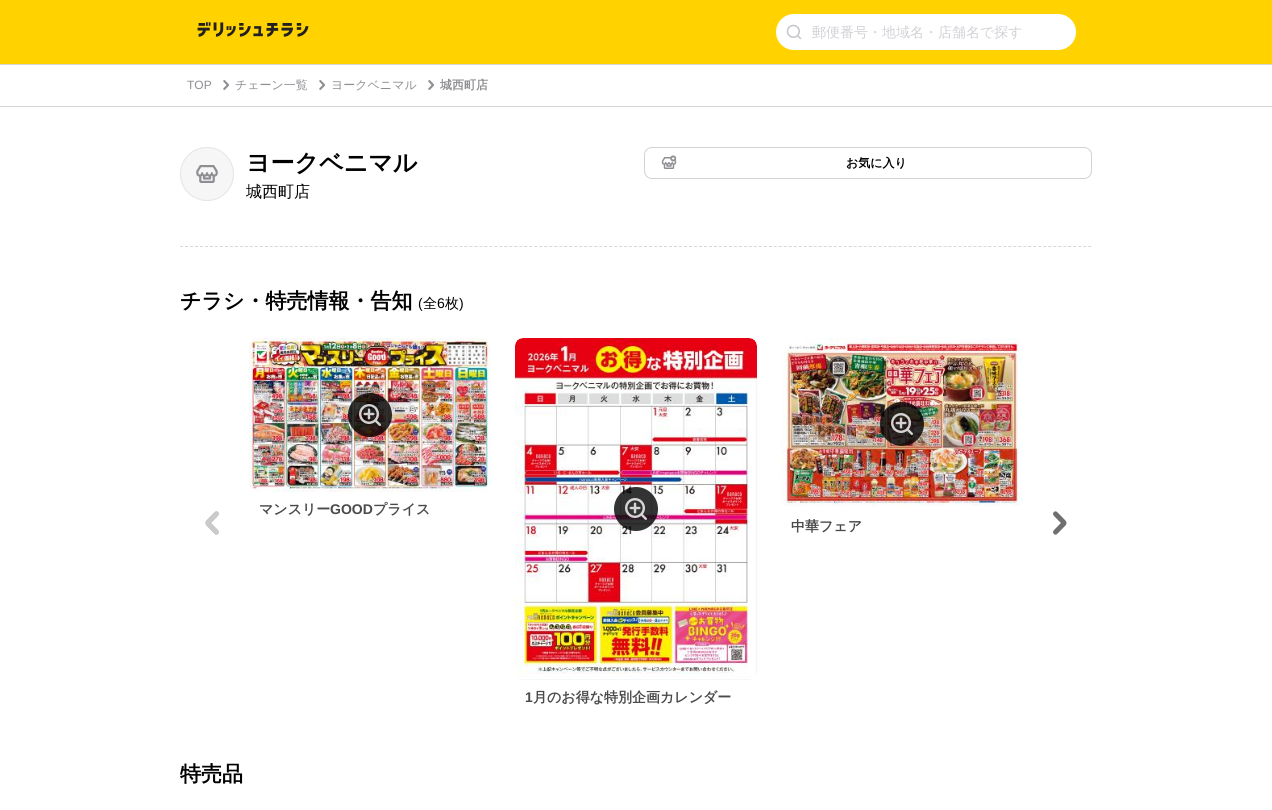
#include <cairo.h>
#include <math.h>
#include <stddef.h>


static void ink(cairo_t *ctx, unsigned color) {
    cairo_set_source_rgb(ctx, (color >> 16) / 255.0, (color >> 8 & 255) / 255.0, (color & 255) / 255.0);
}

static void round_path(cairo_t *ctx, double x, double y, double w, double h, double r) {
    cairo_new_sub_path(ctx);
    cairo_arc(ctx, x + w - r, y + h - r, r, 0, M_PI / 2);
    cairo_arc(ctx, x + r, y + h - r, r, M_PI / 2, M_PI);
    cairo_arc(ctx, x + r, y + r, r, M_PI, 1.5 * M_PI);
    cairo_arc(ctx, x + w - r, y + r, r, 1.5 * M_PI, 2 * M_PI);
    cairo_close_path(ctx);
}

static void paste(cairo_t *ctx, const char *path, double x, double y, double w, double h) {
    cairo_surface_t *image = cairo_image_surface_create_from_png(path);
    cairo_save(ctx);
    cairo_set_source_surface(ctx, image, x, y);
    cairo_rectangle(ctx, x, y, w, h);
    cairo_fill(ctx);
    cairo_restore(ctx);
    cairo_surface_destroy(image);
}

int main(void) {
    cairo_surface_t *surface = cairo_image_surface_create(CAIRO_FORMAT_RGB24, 1272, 810);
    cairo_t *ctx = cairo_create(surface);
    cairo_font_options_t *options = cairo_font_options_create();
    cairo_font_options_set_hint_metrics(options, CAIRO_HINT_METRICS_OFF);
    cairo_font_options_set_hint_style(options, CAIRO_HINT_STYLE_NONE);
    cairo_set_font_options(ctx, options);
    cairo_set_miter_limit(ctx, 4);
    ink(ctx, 0xFFFFFF);
    cairo_paint(ctx);
    ink(ctx, 0xFFD200);
    cairo_rectangle(ctx, 0, 0, 1272, 64);
    cairo_fill(ctx);
    paste(ctx, "media/1.png", 197, 22, 112, 15);
    ink(ctx, 0xFFFFFF);
    round_path(ctx, 776, 14, 300, 36, 18);
    cairo_fill(ctx);
    paste(ctx, "media/2.png", 786, 24, 16, 16);
    cairo_select_font_face(ctx, "WenQuanYi Zen Hei Medium", CAIRO_FONT_SLANT_NORMAL, CAIRO_FONT_WEIGHT_NORMAL);
    cairo_set_font_size(ctx, 14);
    ink(ctx, 0xD1D1D6);
    cairo_move_to(ctx, 812, 37);
    cairo_show_text(ctx, "郵便番号・地域名・店舗名で探す");
    ink(ctx, 0xD8D8D8);
    cairo_rectangle(ctx, 0, 64, 1272, 1);
    cairo_fill(ctx);
    cairo_rectangle(ctx, 0, 106, 1272, 1);
    cairo_fill(ctx);
    cairo_select_font_face(ctx, "Liberation Sans", CAIRO_FONT_SLANT_NORMAL, CAIRO_FONT_WEIGHT_NORMAL);
    cairo_set_font_size(ctx, 12);
    ink(ctx, 0x8E8E93);
    cairo_move_to(ctx, 187, 89);
    cairo_show_text(ctx, "TOP");
    paste(ctx, "media/3.png", 223, 80, 6, 10);
    cairo_select_font_face(ctx, "WenQuanYi Zen Hei Medium", CAIRO_FONT_SLANT_NORMAL, CAIRO_FONT_WEIGHT_NORMAL);
    cairo_move_to(ctx, 235, 89);
    cairo_show_text(ctx, "チェーン一覧");
    paste(ctx, "media/3.png", 319, 80, 6, 10);
    cairo_move_to(ctx, 331, 89);
    cairo_show_text(ctx, "ヨークベニマル");
    paste(ctx, "media/3.png", 428, 80, 6, 10);
    cairo_select_font_face(ctx, "WenQuanYi Zen Hei", CAIRO_FONT_SLANT_NORMAL, CAIRO_FONT_WEIGHT_BOLD);
    cairo_move_to(ctx, 440, 89);
    cairo_show_text(ctx, "城西町店");
    ink(ctx, 0xF6F6F6);
    cairo_new_path(ctx);
    cairo_arc(ctx, 207, 174, 27, 0, 2 * M_PI);
    cairo_fill(ctx);
    paste(ctx, "media/4.png", 196, 165, 22, 18);
    cairo_arc(ctx, 207, 174, 26.5, 0, 2 * M_PI);
    ink(ctx, 0xE5E5EA);
    cairo_set_line_width(ctx, 1);
    cairo_stroke(ctx);
    cairo_set_font_size(ctx, 24);
    ink(ctx, 0x000000);
    cairo_move_to(ctx, 246, 171);
    cairo_show_text(ctx, "ヨークベニマル");
    cairo_select_font_face(ctx, "WenQuanYi Zen Hei Medium", CAIRO_FONT_SLANT_NORMAL, CAIRO_FONT_WEIGHT_NORMAL);
    cairo_set_font_size(ctx, 16);
    cairo_move_to(ctx, 246, 197);
    cairo_show_text(ctx, "城西町店");
    round_path(ctx, 644.5, 147.5, 447, 31, 7.5);
    ink(ctx, 0xD1D1D6);
    cairo_stroke(ctx);
    paste(ctx, "media/5.png", 661, 155, 16, 14);
    cairo_select_font_face(ctx, "WenQuanYi Zen Hei", CAIRO_FONT_SLANT_NORMAL, CAIRO_FONT_WEIGHT_BOLD);
    cairo_set_font_size(ctx, 12);
    ink(ctx, 0x000000);
    cairo_move_to(ctx, 846, 167);
    cairo_show_text(ctx, "お気に入り");
    cairo_new_path(ctx);
    cairo_move_to(ctx, 180, 246.5);
    cairo_line_to(ctx, 1092, 246.5);
    ink(ctx, 0xD8D8D8);
    cairo_set_dash(ctx, (double[]){3, 1.99}, 2, 0);
    cairo_stroke(ctx);
    cairo_set_font_size(ctx, 21);
    ink(ctx, 0x000000);
    cairo_move_to(ctx, 180, 308);
    cairo_show_text(ctx, "チラシ・特売情報・告知");
    cairo_select_font_face(ctx, "Liberation Sans", CAIRO_FONT_SLANT_NORMAL, CAIRO_FONT_WEIGHT_NORMAL);
    cairo_set_font_size(ctx, 14);
    cairo_move_to(ctx, 418, 308);
    cairo_show_text(ctx, "(");
    cairo_select_font_face(ctx, "WenQuanYi Zen Hei Medium", CAIRO_FONT_SLANT_NORMAL, CAIRO_FONT_WEIGHT_NORMAL);
    cairo_move_to(ctx, 423, 308);
    cairo_show_text(ctx, "全");
    cairo_select_font_face(ctx, "Liberation Sans", CAIRO_FONT_SLANT_NORMAL, CAIRO_FONT_WEIGHT_NORMAL);
    cairo_move_to(ctx, 437, 308);
    cairo_show_text(ctx, "6");
    cairo_select_font_face(ctx, "WenQuanYi Zen Hei Medium", CAIRO_FONT_SLANT_NORMAL, CAIRO_FONT_WEIGHT_NORMAL);
    cairo_move_to(ctx, 445, 308);
    cairo_show_text(ctx, "枚");
    cairo_select_font_face(ctx, "Liberation Sans", CAIRO_FONT_SLANT_NORMAL, CAIRO_FONT_WEIGHT_NORMAL);
    cairo_move_to(ctx, 459, 308);
    cairo_show_text(ctx, ")");
    paste(ctx, "media/6.png", 205, 511, 14, 24);
    paste(ctx, "media/7.png", 249, 338, 242, 154);
    cairo_set_source_rgba(ctx, 0, 0, 0, 0.8);
    cairo_arc(ctx, 370, 415, 22, 0, 2 * M_PI);
    cairo_fill(ctx);
    paste(ctx, "media/8.png", 359, 404, 22, 22);
    cairo_select_font_face(ctx, "WenQuanYi Zen Hei", CAIRO_FONT_SLANT_NORMAL, CAIRO_FONT_WEIGHT_BOLD);
    ink(ctx, 0x4A4A4A);
    cairo_move_to(ctx, 259, 514);
    cairo_show_text(ctx, "マンスリー");
    cairo_select_font_face(ctx, "Liberation Sans", CAIRO_FONT_SLANT_NORMAL, CAIRO_FONT_WEIGHT_BOLD);
    cairo_move_to(ctx, 330, 514);
    cairo_show_text(ctx, "GOOD");
    cairo_select_font_face(ctx, "WenQuanYi Zen Hei", CAIRO_FONT_SLANT_NORMAL, CAIRO_FONT_WEIGHT_BOLD);
    cairo_move_to(ctx, 373, 514);
    cairo_show_text(ctx, "プライス");
    paste(ctx, "media/9.png", 781, 338, 242, 168);
    cairo_set_source_rgba(ctx, 0, 0, 0, 0.8);
    cairo_arc(ctx, 902, 424, 22, 0, 2 * M_PI);
    cairo_fill(ctx);
    paste(ctx, "media/10.png", 891, 413, 22, 22);
    ink(ctx, 0x4A4A4A);
    cairo_move_to(ctx, 791, 531);
    cairo_show_text(ctx, "中華フェア");
    paste(ctx, "media/11.png", 515, 338, 242, 342);
    cairo_set_source_rgba(ctx, 0, 0, 0, 0.8);
    cairo_arc(ctx, 636, 509, 22, 0, 2 * M_PI);
    cairo_fill(ctx);
    paste(ctx, "media/12.png", 625, 498, 22, 22);
    cairo_select_font_face(ctx, "Liberation Sans", CAIRO_FONT_SLANT_NORMAL, CAIRO_FONT_WEIGHT_BOLD);
    ink(ctx, 0x4A4A4A);
    cairo_move_to(ctx, 525, 702);
    cairo_show_text(ctx, "1");
    cairo_select_font_face(ctx, "WenQuanYi Zen Hei", CAIRO_FONT_SLANT_NORMAL, CAIRO_FONT_WEIGHT_BOLD);
    cairo_move_to(ctx, 533, 702);
    cairo_show_text(ctx, "月のお得な特別企画カレンダー");
    paste(ctx, "media/13.png", 1053, 511, 14, 24);
    cairo_set_font_size(ctx, 21);
    ink(ctx, 0x000000);
    cairo_move_to(ctx, 180, 781);
    cairo_show_text(ctx, "特売品");
    cairo_surface_write_to_png(surface, "image.png");
    cairo_font_options_destroy(options);
    cairo_destroy(ctx);
    cairo_surface_destroy(surface);
    return 0;
}
